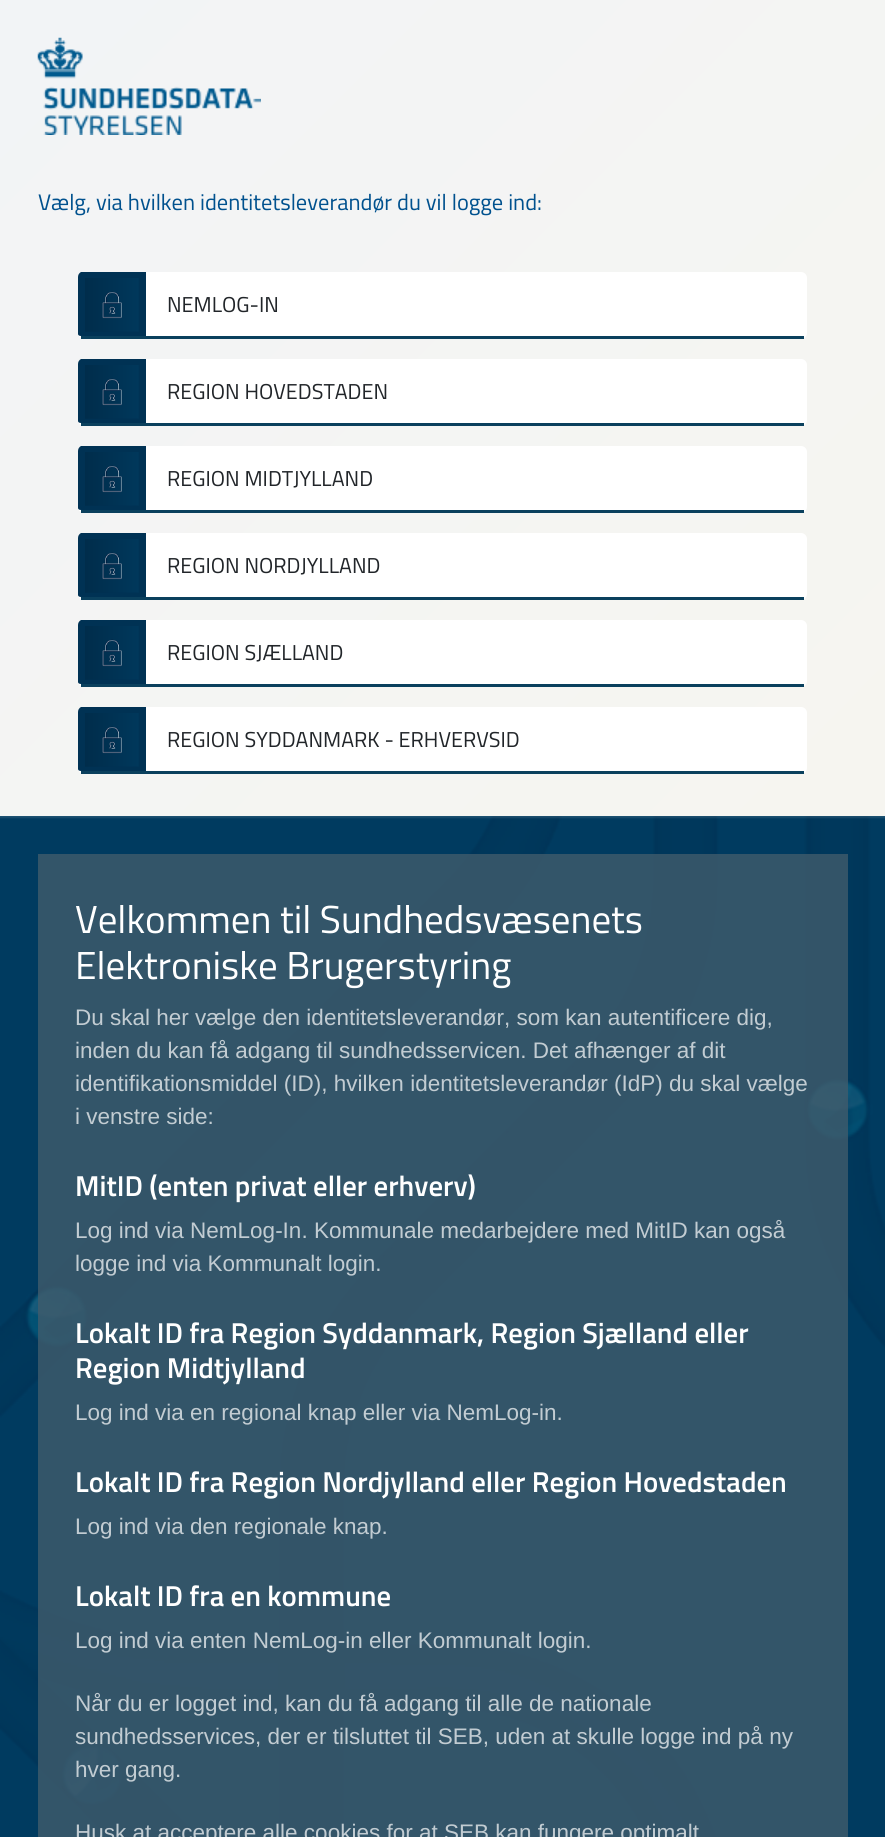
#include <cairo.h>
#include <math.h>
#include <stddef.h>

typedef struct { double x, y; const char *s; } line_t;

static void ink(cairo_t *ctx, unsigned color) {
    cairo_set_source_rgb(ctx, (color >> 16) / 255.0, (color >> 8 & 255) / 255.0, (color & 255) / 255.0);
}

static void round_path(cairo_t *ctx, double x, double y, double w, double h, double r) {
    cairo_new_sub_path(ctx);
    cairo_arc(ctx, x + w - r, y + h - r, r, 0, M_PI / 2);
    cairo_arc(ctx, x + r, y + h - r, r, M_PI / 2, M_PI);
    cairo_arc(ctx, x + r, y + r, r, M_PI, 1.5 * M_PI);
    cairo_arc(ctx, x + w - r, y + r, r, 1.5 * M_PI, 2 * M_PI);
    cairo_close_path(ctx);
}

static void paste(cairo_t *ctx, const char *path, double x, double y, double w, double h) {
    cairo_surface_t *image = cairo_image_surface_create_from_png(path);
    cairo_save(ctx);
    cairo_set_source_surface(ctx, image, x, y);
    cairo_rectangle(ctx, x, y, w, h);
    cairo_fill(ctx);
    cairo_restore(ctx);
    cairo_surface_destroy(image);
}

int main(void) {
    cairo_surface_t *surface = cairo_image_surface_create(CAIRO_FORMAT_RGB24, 885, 1837);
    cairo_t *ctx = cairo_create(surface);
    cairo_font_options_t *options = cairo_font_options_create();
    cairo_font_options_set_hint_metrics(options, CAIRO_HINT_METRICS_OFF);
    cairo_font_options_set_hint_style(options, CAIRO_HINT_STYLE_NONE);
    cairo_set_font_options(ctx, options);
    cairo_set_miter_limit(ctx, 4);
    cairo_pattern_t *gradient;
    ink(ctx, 0xFFFFFF);
    cairo_paint(ctx);
    gradient = cairo_pattern_create_linear(868, 833, 17, -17);
    cairo_pattern_add_color_stop_rgba(gradient, 0, 0.965, 0.961, 0.941, 1);
    cairo_pattern_add_color_stop_rgba(gradient, 1, 0.949, 0.957, 0.965, 1);
    cairo_set_source(ctx, gradient);
    cairo_pattern_destroy(gradient);
    cairo_rectangle(ctx, 0, 0, 885, 816);
    cairo_fill(ctx);
    paste(ctx, "media/1.png", 37, 37, 224, 98);
    cairo_select_font_face(ctx, "Titillium Web", CAIRO_FONT_SLANT_NORMAL, CAIRO_FONT_WEIGHT_NORMAL);
    cairo_set_font_size(ctx, 22.5);
    ink(ctx, 0x00518E);
    cairo_move_to(ctx, 38, 210);
    cairo_show_text(ctx, "Vælg, via hvilken identitetsleverandør du vil logge ind:");
    ink(ctx, 0xFFFFFF);
    round_path(ctx, 78, 272, 729, 67, 6);
    cairo_fill(ctx);
    ink(ctx, 0x0A405D);
    cairo_rectangle(ctx, 81, 336, 723, 3);
    cairo_fill(ctx);
    ink(ctx, 0x003254);
    cairo_new_path(ctx);
    cairo_move_to(ctx, 78, 277);
    cairo_line_to(ctx, 78, 334);
    cairo_curve_to(ctx, 78, 335, 79, 336, 81, 336);
    cairo_line_to(ctx, 146, 336);
    cairo_line_to(ctx, 146, 272);
    cairo_line_to(ctx, 81, 272);
    cairo_curve_to(ctx, 79, 273, 78, 275, 78, 277);
    cairo_close_path(ctx);
    cairo_fill(ctx);
    paste(ctx, "media/2.png", 85, 278, 54, 54);
    cairo_set_font_size(ctx, 21.6);
    ink(ctx, 0x212529);
    cairo_move_to(ctx, 167, 312);
    cairo_show_text(ctx, "NEMLOG-IN");
    ink(ctx, 0xFFFFFF);
    round_path(ctx, 78, 359, 729, 67, 6);
    cairo_fill(ctx);
    ink(ctx, 0x0A405D);
    cairo_rectangle(ctx, 81, 423, 723, 3);
    cairo_fill(ctx);
    ink(ctx, 0x003254);
    cairo_new_path(ctx);
    cairo_move_to(ctx, 78, 364);
    cairo_line_to(ctx, 78, 421);
    cairo_curve_to(ctx, 78, 422, 79, 423, 81, 423);
    cairo_line_to(ctx, 146, 423);
    cairo_line_to(ctx, 146, 359);
    cairo_line_to(ctx, 81, 359);
    cairo_curve_to(ctx, 79, 360, 78, 362, 78, 364);
    cairo_close_path(ctx);
    cairo_fill(ctx);
    paste(ctx, "media/2.png", 85, 365, 54, 54);
    ink(ctx, 0x212529);
    cairo_move_to(ctx, 167, 399);
    cairo_show_text(ctx, "REGION HOVEDSTADEN");
    ink(ctx, 0xFFFFFF);
    round_path(ctx, 78, 446, 729, 67, 6);
    cairo_fill(ctx);
    ink(ctx, 0x0A405D);
    cairo_rectangle(ctx, 81, 510, 723, 3);
    cairo_fill(ctx);
    ink(ctx, 0x003254);
    cairo_new_path(ctx);
    cairo_move_to(ctx, 78, 451);
    cairo_line_to(ctx, 78, 508);
    cairo_curve_to(ctx, 78, 509, 79, 510, 81, 510);
    cairo_line_to(ctx, 146, 510);
    cairo_line_to(ctx, 146, 446);
    cairo_line_to(ctx, 81, 446);
    cairo_curve_to(ctx, 79, 447, 78, 449, 78, 451);
    cairo_close_path(ctx);
    cairo_fill(ctx);
    paste(ctx, "media/2.png", 85, 452, 54, 54);
    ink(ctx, 0x212529);
    cairo_move_to(ctx, 167, 486);
    cairo_show_text(ctx, "REGION MIDTJYLLAND");
    ink(ctx, 0xFFFFFF);
    round_path(ctx, 78, 533, 729, 67, 6);
    cairo_fill(ctx);
    ink(ctx, 0x0A405D);
    cairo_rectangle(ctx, 81, 597, 723, 3);
    cairo_fill(ctx);
    ink(ctx, 0x003254);
    cairo_new_path(ctx);
    cairo_move_to(ctx, 78, 538);
    cairo_line_to(ctx, 78, 595);
    cairo_curve_to(ctx, 78, 596, 79, 597, 81, 597);
    cairo_line_to(ctx, 146, 597);
    cairo_line_to(ctx, 146, 533);
    cairo_line_to(ctx, 81, 533);
    cairo_curve_to(ctx, 79, 534, 78, 536, 78, 538);
    cairo_close_path(ctx);
    cairo_fill(ctx);
    paste(ctx, "media/2.png", 85, 539, 54, 54);
    ink(ctx, 0x212529);
    cairo_move_to(ctx, 167, 573);
    cairo_show_text(ctx, "REGION NORDJYLLAND");
    ink(ctx, 0xFFFFFF);
    round_path(ctx, 78, 620, 729, 67, 6);
    cairo_fill(ctx);
    ink(ctx, 0x0A405D);
    cairo_rectangle(ctx, 81, 684, 723, 3);
    cairo_fill(ctx);
    ink(ctx, 0x003254);
    cairo_new_path(ctx);
    cairo_move_to(ctx, 78, 625);
    cairo_line_to(ctx, 78, 682);
    cairo_curve_to(ctx, 78, 683, 79, 684, 81, 684);
    cairo_line_to(ctx, 146, 684);
    cairo_line_to(ctx, 146, 620);
    cairo_line_to(ctx, 81, 620);
    cairo_curve_to(ctx, 79, 621, 78, 623, 78, 625);
    cairo_close_path(ctx);
    cairo_fill(ctx);
    paste(ctx, "media/2.png", 85, 626, 54, 54);
    ink(ctx, 0x212529);
    cairo_move_to(ctx, 167, 660);
    cairo_show_text(ctx, "REGION SJÆLLAND");
    ink(ctx, 0xFFFFFF);
    round_path(ctx, 78, 707, 729, 67, 6);
    cairo_fill(ctx);
    ink(ctx, 0x0A405D);
    cairo_rectangle(ctx, 81, 771, 723, 3);
    cairo_fill(ctx);
    ink(ctx, 0x003254);
    cairo_new_path(ctx);
    cairo_move_to(ctx, 78, 712);
    cairo_line_to(ctx, 78, 769);
    cairo_curve_to(ctx, 78, 770, 79, 771, 81, 771);
    cairo_line_to(ctx, 146, 771);
    cairo_line_to(ctx, 146, 707);
    cairo_line_to(ctx, 81, 707);
    cairo_curve_to(ctx, 79, 708, 78, 710, 78, 712);
    cairo_close_path(ctx);
    cairo_fill(ctx);
    paste(ctx, "media/2.png", 85, 713, 54, 54);
    ink(ctx, 0x212529);
    cairo_move_to(ctx, 167, 747);
    cairo_show_text(ctx, "REGION SYDDANMARK - ERHVERVSID");
    paste(ctx, "media/3.png", 0, 816, 885, 1021);
    cairo_set_source_rgba(ctx, 0.251, 0.357, 0.42, 0.8);
    cairo_rectangle(ctx, 38, 854, 810, 983);
    cairo_fill(ctx);
    cairo_set_font_size(ctx, 39);
    ink(ctx, 0xFFFFFF);
    cairo_move_to(ctx, 75, 933);
    cairo_show_text(ctx, "Velkommen til Sundhedsvæsenets");
    cairo_move_to(ctx, 75, 979);
    cairo_show_text(ctx, "Elektroniske Brugerstyring");
    cairo_select_font_face(ctx, "Liberation Sans", CAIRO_FONT_SLANT_NORMAL, CAIRO_FONT_WEIGHT_NORMAL);
    cairo_set_font_size(ctx, 22.5);
    ink(ctx, 0xC2CCD2);
    {
        static const line_t items[] = {
            {75, 1025, "Du skal her vælge den identitetsleverandør, som kan autentificere dig,"},
            {75, 1058, "inden du kan få adgang til sundhedsservicen. Det afhænger af dit"},
            {75, 1091, "identifikationsmiddel (ID), hvilken identitetsleverandør (IdP) du skal vælge"},
            {75, 1124, "i venstre side:"},
        };
        for (size_t i = 0; i < sizeof items / sizeof *items; i++) {
            cairo_move_to(ctx, items[i].x, items[i].y);
            cairo_show_text(ctx, items[i].s);
        }
    }
    cairo_select_font_face(ctx, "Titillium Web SemiBold", CAIRO_FONT_SLANT_NORMAL, CAIRO_FONT_WEIGHT_NORMAL);
    cairo_set_font_size(ctx, 28.8);
    ink(ctx, 0xFFFFFF);
    cairo_move_to(ctx, 75, 1196);
    cairo_show_text(ctx, "MitID (enten privat eller erhverv)");
    cairo_select_font_face(ctx, "Liberation Sans", CAIRO_FONT_SLANT_NORMAL, CAIRO_FONT_WEIGHT_NORMAL);
    cairo_set_font_size(ctx, 22.5);
    ink(ctx, 0xC2CCD2);
    cairo_move_to(ctx, 75, 1238);
    cairo_show_text(ctx, "Log ind via NemLog-In. Kommunale medarbejdere med MitID kan også");
    cairo_move_to(ctx, 75, 1271);
    cairo_show_text(ctx, "logge ind via Kommunalt login.");
    cairo_select_font_face(ctx, "Titillium Web SemiBold", CAIRO_FONT_SLANT_NORMAL, CAIRO_FONT_WEIGHT_NORMAL);
    cairo_set_font_size(ctx, 28.8);
    ink(ctx, 0xFFFFFF);
    cairo_move_to(ctx, 75, 1343);
    cairo_show_text(ctx, "Lokalt ID fra Region Syddanmark, Region Sjælland eller");
    cairo_move_to(ctx, 75, 1378);
    cairo_show_text(ctx, "Region Midtjylland");
    cairo_select_font_face(ctx, "Liberation Sans", CAIRO_FONT_SLANT_NORMAL, CAIRO_FONT_WEIGHT_NORMAL);
    cairo_set_font_size(ctx, 22.5);
    ink(ctx, 0xC2CCD2);
    cairo_move_to(ctx, 75, 1420);
    cairo_show_text(ctx, "Log ind via en regional knap eller via NemLog-in.");
    cairo_select_font_face(ctx, "Titillium Web SemiBold", CAIRO_FONT_SLANT_NORMAL, CAIRO_FONT_WEIGHT_NORMAL);
    cairo_set_font_size(ctx, 28.8);
    ink(ctx, 0xFFFFFF);
    cairo_move_to(ctx, 75, 1492);
    cairo_show_text(ctx, "Lokalt ID fra Region Nordjylland eller Region Hovedstaden");
    cairo_select_font_face(ctx, "Liberation Sans", CAIRO_FONT_SLANT_NORMAL, CAIRO_FONT_WEIGHT_NORMAL);
    cairo_set_font_size(ctx, 22.5);
    ink(ctx, 0xC2CCD2);
    cairo_move_to(ctx, 75, 1534);
    cairo_show_text(ctx, "Log ind via den regionale knap.");
    cairo_select_font_face(ctx, "Titillium Web SemiBold", CAIRO_FONT_SLANT_NORMAL, CAIRO_FONT_WEIGHT_NORMAL);
    cairo_set_font_size(ctx, 28.8);
    ink(ctx, 0xFFFFFF);
    cairo_move_to(ctx, 75, 1606);
    cairo_show_text(ctx, "Lokalt ID fra en kommune");
    cairo_select_font_face(ctx, "Liberation Sans", CAIRO_FONT_SLANT_NORMAL, CAIRO_FONT_WEIGHT_NORMAL);
    cairo_set_font_size(ctx, 22.5);
    ink(ctx, 0xC2CCD2);
    {
        static const line_t items[] = {
            {75, 1648, "Log ind via enten NemLog-in eller Kommunalt login."},
            {75, 1711, "Når du er logget ind, kan du få adgang til alle de nationale"},
            {75, 1744, "sundhedsservices, der er tilsluttet til SEB, uden at skulle logge ind på ny"},
            {75, 1777, "hver gang."},
            {75, 1840, "Husk at acceptere alle cookies for at SEB kan fungere optimalt"},
        };
        for (size_t i = 0; i < sizeof items / sizeof *items; i++) {
            cairo_move_to(ctx, items[i].x, items[i].y);
            cairo_show_text(ctx, items[i].s);
        }
    }
    cairo_surface_write_to_png(surface, "image.png");
    cairo_font_options_destroy(options);
    cairo_destroy(ctx);
    cairo_surface_destroy(surface);
    return 0;
}
